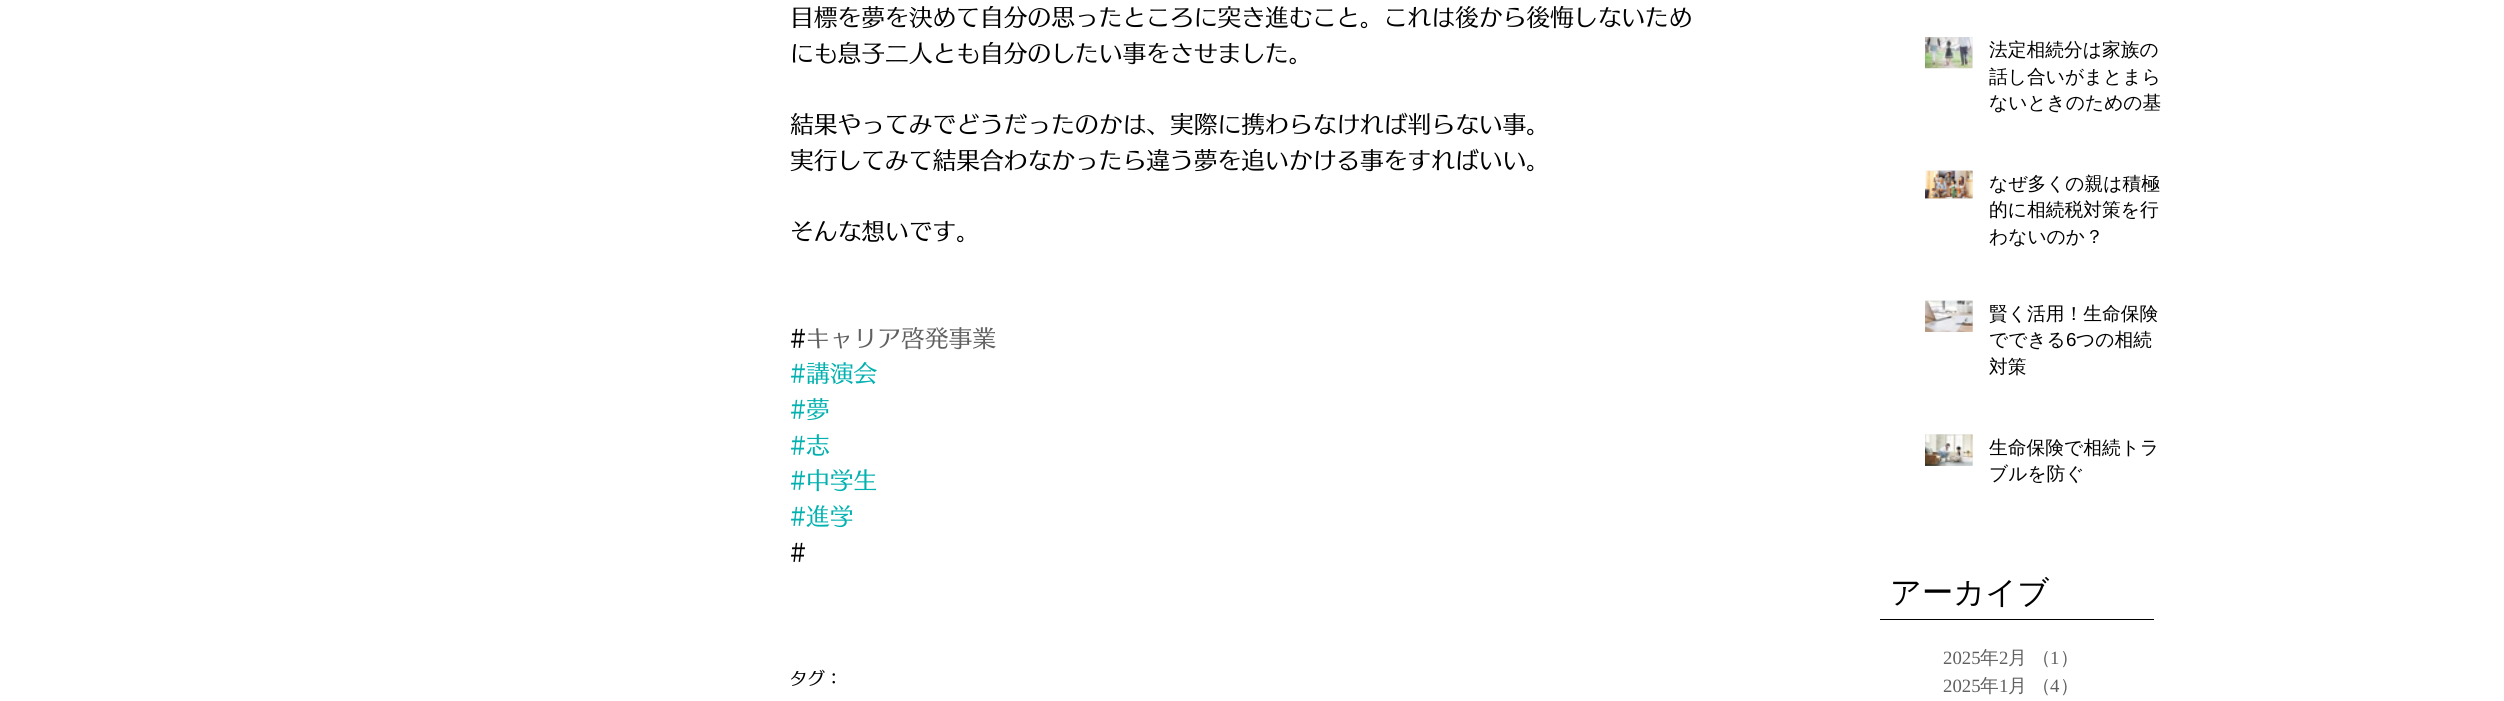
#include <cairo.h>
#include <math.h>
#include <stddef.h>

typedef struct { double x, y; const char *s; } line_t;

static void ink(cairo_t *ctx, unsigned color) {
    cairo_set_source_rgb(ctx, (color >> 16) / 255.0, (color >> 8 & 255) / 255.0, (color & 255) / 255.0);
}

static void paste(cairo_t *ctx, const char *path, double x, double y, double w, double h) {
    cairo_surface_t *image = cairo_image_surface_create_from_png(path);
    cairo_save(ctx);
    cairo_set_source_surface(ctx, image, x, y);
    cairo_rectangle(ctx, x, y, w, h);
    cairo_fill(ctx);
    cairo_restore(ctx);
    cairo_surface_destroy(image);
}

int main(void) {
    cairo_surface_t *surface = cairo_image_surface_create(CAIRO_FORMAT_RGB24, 2504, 701);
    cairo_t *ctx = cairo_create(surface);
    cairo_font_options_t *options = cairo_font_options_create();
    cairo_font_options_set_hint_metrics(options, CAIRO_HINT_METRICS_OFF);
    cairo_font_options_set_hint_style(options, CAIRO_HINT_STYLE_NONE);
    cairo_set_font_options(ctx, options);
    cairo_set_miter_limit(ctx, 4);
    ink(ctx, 0xFFFFFF);
    cairo_paint(ctx);
    cairo_select_font_face(ctx, "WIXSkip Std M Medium", CAIRO_FONT_SLANT_NORMAL, CAIRO_FONT_WEIGHT_NORMAL);
    cairo_set_font_size(ctx, 23.75);
    ink(ctx, 0x000000);
    {
        static const line_t items[] = {
            {790, 26, "目標を夢を決めて自分の思ったところに突き進むこと。これは後から後悔しないため"},
            {790, 62, "にも息子二人とも自分のしたい事をさせました。"},
            {790, 133, "結果やってみでどうだったのかは、実際に携わらなければ判らない事。"},
            {790, 169, "実行してみて結果合わなかったら違う夢を追いかける事をすればいい。"},
            {790, 240, "そんな想いです。"},
            {790, 347, "#"},
        };
        for (size_t i = 0; i < sizeof items / sizeof *items; i++) {
            cairo_move_to(ctx, items[i].x, items[i].y);
            cairo_show_text(ctx, items[i].s);
        }
    }
    ink(ctx, 0x606060);
    cairo_move_to(ctx, 806, 347);
    cairo_show_text(ctx, "キャリア啓発事業");
    ink(ctx, 0x01B1AF);
    {
        static const line_t items[] = {
            {790, 382, "#講演会"},
            {790, 418, "#夢"},
            {790, 454, "#志"},
            {790, 489, "#中学生"},
            {790, 525, "#進学"},
        };
        for (size_t i = 0; i < sizeof items / sizeof *items; i++) {
            cairo_move_to(ctx, items[i].x, items[i].y);
            cairo_show_text(ctx, items[i].s);
        }
    }
    ink(ctx, 0x000000);
    cairo_move_to(ctx, 790, 561);
    cairo_show_text(ctx, "#");
    cairo_set_font_size(ctx, 17.5);
    cairo_move_to(ctx, 790, 685);
    cairo_show_text(ctx, "タグ：");
    paste(ctx, "media/1.png", 1925, 37, 48, 32);
    paste(ctx, "media/2.png", 1925, 37, 47, 31);
    cairo_select_font_face(ctx, "WenQuanYi Zen Hei Medium", CAIRO_FONT_SLANT_NORMAL, CAIRO_FONT_WEIGHT_NORMAL);
    cairo_set_font_size(ctx, 18.75);
    {
        static const line_t items[] = {
            {1989, 56, "法定相続分は家族の"},
            {1989, 83, "話し合いがまとまら"},
            {1989, 109, "ないときのための基"},
        };
        for (size_t i = 0; i < sizeof items / sizeof *items; i++) {
            cairo_move_to(ctx, items[i].x, items[i].y);
            cairo_show_text(ctx, items[i].s);
        }
    }
    paste(ctx, "media/3.png", 1925, 170, 48, 29);
    paste(ctx, "media/4.png", 1925, 170, 48, 29);
    {
        static const line_t items[] = {
            {1989, 190, "なぜ多くの親は積極"},
            {1989, 216, "的に相続税対策を行"},
            {1989, 243, "わないのか？"},
        };
        for (size_t i = 0; i < sizeof items / sizeof *items; i++) {
            cairo_move_to(ctx, items[i].x, items[i].y);
            cairo_show_text(ctx, items[i].s);
        }
    }
    paste(ctx, "media/5.png", 1925, 300, 48, 32);
    paste(ctx, "media/6.png", 1925, 300, 48, 32);
    cairo_move_to(ctx, 1989, 320);
    cairo_show_text(ctx, "賢く活用！生命保険");
    cairo_move_to(ctx, 1989, 346);
    cairo_show_text(ctx, "でできる");
    cairo_select_font_face(ctx, "Liberation Sans", CAIRO_FONT_SLANT_NORMAL, CAIRO_FONT_WEIGHT_NORMAL);
    cairo_move_to(ctx, 2066, 346);
    cairo_show_text(ctx, "6");
    cairo_select_font_face(ctx, "WenQuanYi Zen Hei Medium", CAIRO_FONT_SLANT_NORMAL, CAIRO_FONT_WEIGHT_NORMAL);
    cairo_move_to(ctx, 2076, 346);
    cairo_show_text(ctx, "つの相続");
    cairo_move_to(ctx, 1989, 373);
    cairo_show_text(ctx, "対策");
    paste(ctx, "media/7.png", 1925, 434, 48, 32);
    paste(ctx, "media/8.png", 1925, 434, 48, 32);
    cairo_move_to(ctx, 1989, 454);
    cairo_show_text(ctx, "生命保険で相続トラ");
    cairo_move_to(ctx, 1989, 480);
    cairo_show_text(ctx, "ブルを防ぐ");
    cairo_set_font_size(ctx, 31.25);
    cairo_move_to(ctx, 1890, 603);
    cairo_show_text(ctx, "アーカイブ");
    cairo_rectangle(ctx, 1880, 619, 274, 1);
    cairo_fill(ctx);
    cairo_select_font_face(ctx, "Liberation Serif", CAIRO_FONT_SLANT_NORMAL, CAIRO_FONT_WEIGHT_NORMAL);
    cairo_set_font_size(ctx, 18.75);
    ink(ctx, 0x606060);
    cairo_move_to(ctx, 1943, 664);
    cairo_show_text(ctx, "2025");
    cairo_select_font_face(ctx, "WenQuanYi Zen Hei Medium", CAIRO_FONT_SLANT_NORMAL, CAIRO_FONT_WEIGHT_NORMAL);
    cairo_move_to(ctx, 1980, 664);
    cairo_show_text(ctx, "年");
    cairo_select_font_face(ctx, "Liberation Serif", CAIRO_FONT_SLANT_NORMAL, CAIRO_FONT_WEIGHT_NORMAL);
    cairo_move_to(ctx, 1999, 664);
    cairo_show_text(ctx, "2");
    cairo_select_font_face(ctx, "WenQuanYi Zen Hei Medium", CAIRO_FONT_SLANT_NORMAL, CAIRO_FONT_WEIGHT_NORMAL);
    cairo_move_to(ctx, 2008, 664);
    cairo_show_text(ctx, "月");
    cairo_move_to(ctx, 2032, 664);
    cairo_show_text(ctx, "（");
    cairo_select_font_face(ctx, "Liberation Serif", CAIRO_FONT_SLANT_NORMAL, CAIRO_FONT_WEIGHT_NORMAL);
    cairo_move_to(ctx, 2050, 664);
    cairo_show_text(ctx, "1");
    cairo_select_font_face(ctx, "WenQuanYi Zen Hei Medium", CAIRO_FONT_SLANT_NORMAL, CAIRO_FONT_WEIGHT_NORMAL);
    cairo_move_to(ctx, 2060, 664);
    cairo_show_text(ctx, "）");
    cairo_select_font_face(ctx, "Liberation Serif", CAIRO_FONT_SLANT_NORMAL, CAIRO_FONT_WEIGHT_NORMAL);
    cairo_move_to(ctx, 1943, 692);
    cairo_show_text(ctx, "2025");
    cairo_select_font_face(ctx, "WenQuanYi Zen Hei Medium", CAIRO_FONT_SLANT_NORMAL, CAIRO_FONT_WEIGHT_NORMAL);
    cairo_move_to(ctx, 1980, 692);
    cairo_show_text(ctx, "年");
    cairo_select_font_face(ctx, "Liberation Serif", CAIRO_FONT_SLANT_NORMAL, CAIRO_FONT_WEIGHT_NORMAL);
    cairo_move_to(ctx, 1999, 692);
    cairo_show_text(ctx, "1");
    cairo_select_font_face(ctx, "WenQuanYi Zen Hei Medium", CAIRO_FONT_SLANT_NORMAL, CAIRO_FONT_WEIGHT_NORMAL);
    cairo_move_to(ctx, 2008, 692);
    cairo_show_text(ctx, "月");
    cairo_move_to(ctx, 2032, 692);
    cairo_show_text(ctx, "（");
    cairo_select_font_face(ctx, "Liberation Serif", CAIRO_FONT_SLANT_NORMAL, CAIRO_FONT_WEIGHT_NORMAL);
    cairo_move_to(ctx, 2050, 692);
    cairo_show_text(ctx, "4");
    cairo_select_font_face(ctx, "WenQuanYi Zen Hei Medium", CAIRO_FONT_SLANT_NORMAL, CAIRO_FONT_WEIGHT_NORMAL);
    cairo_move_to(ctx, 2060, 692);
    cairo_show_text(ctx, "）");
    cairo_surface_write_to_png(surface, "image.png");
    cairo_font_options_destroy(options);
    cairo_destroy(ctx);
    cairo_surface_destroy(surface);
    return 0;
}
